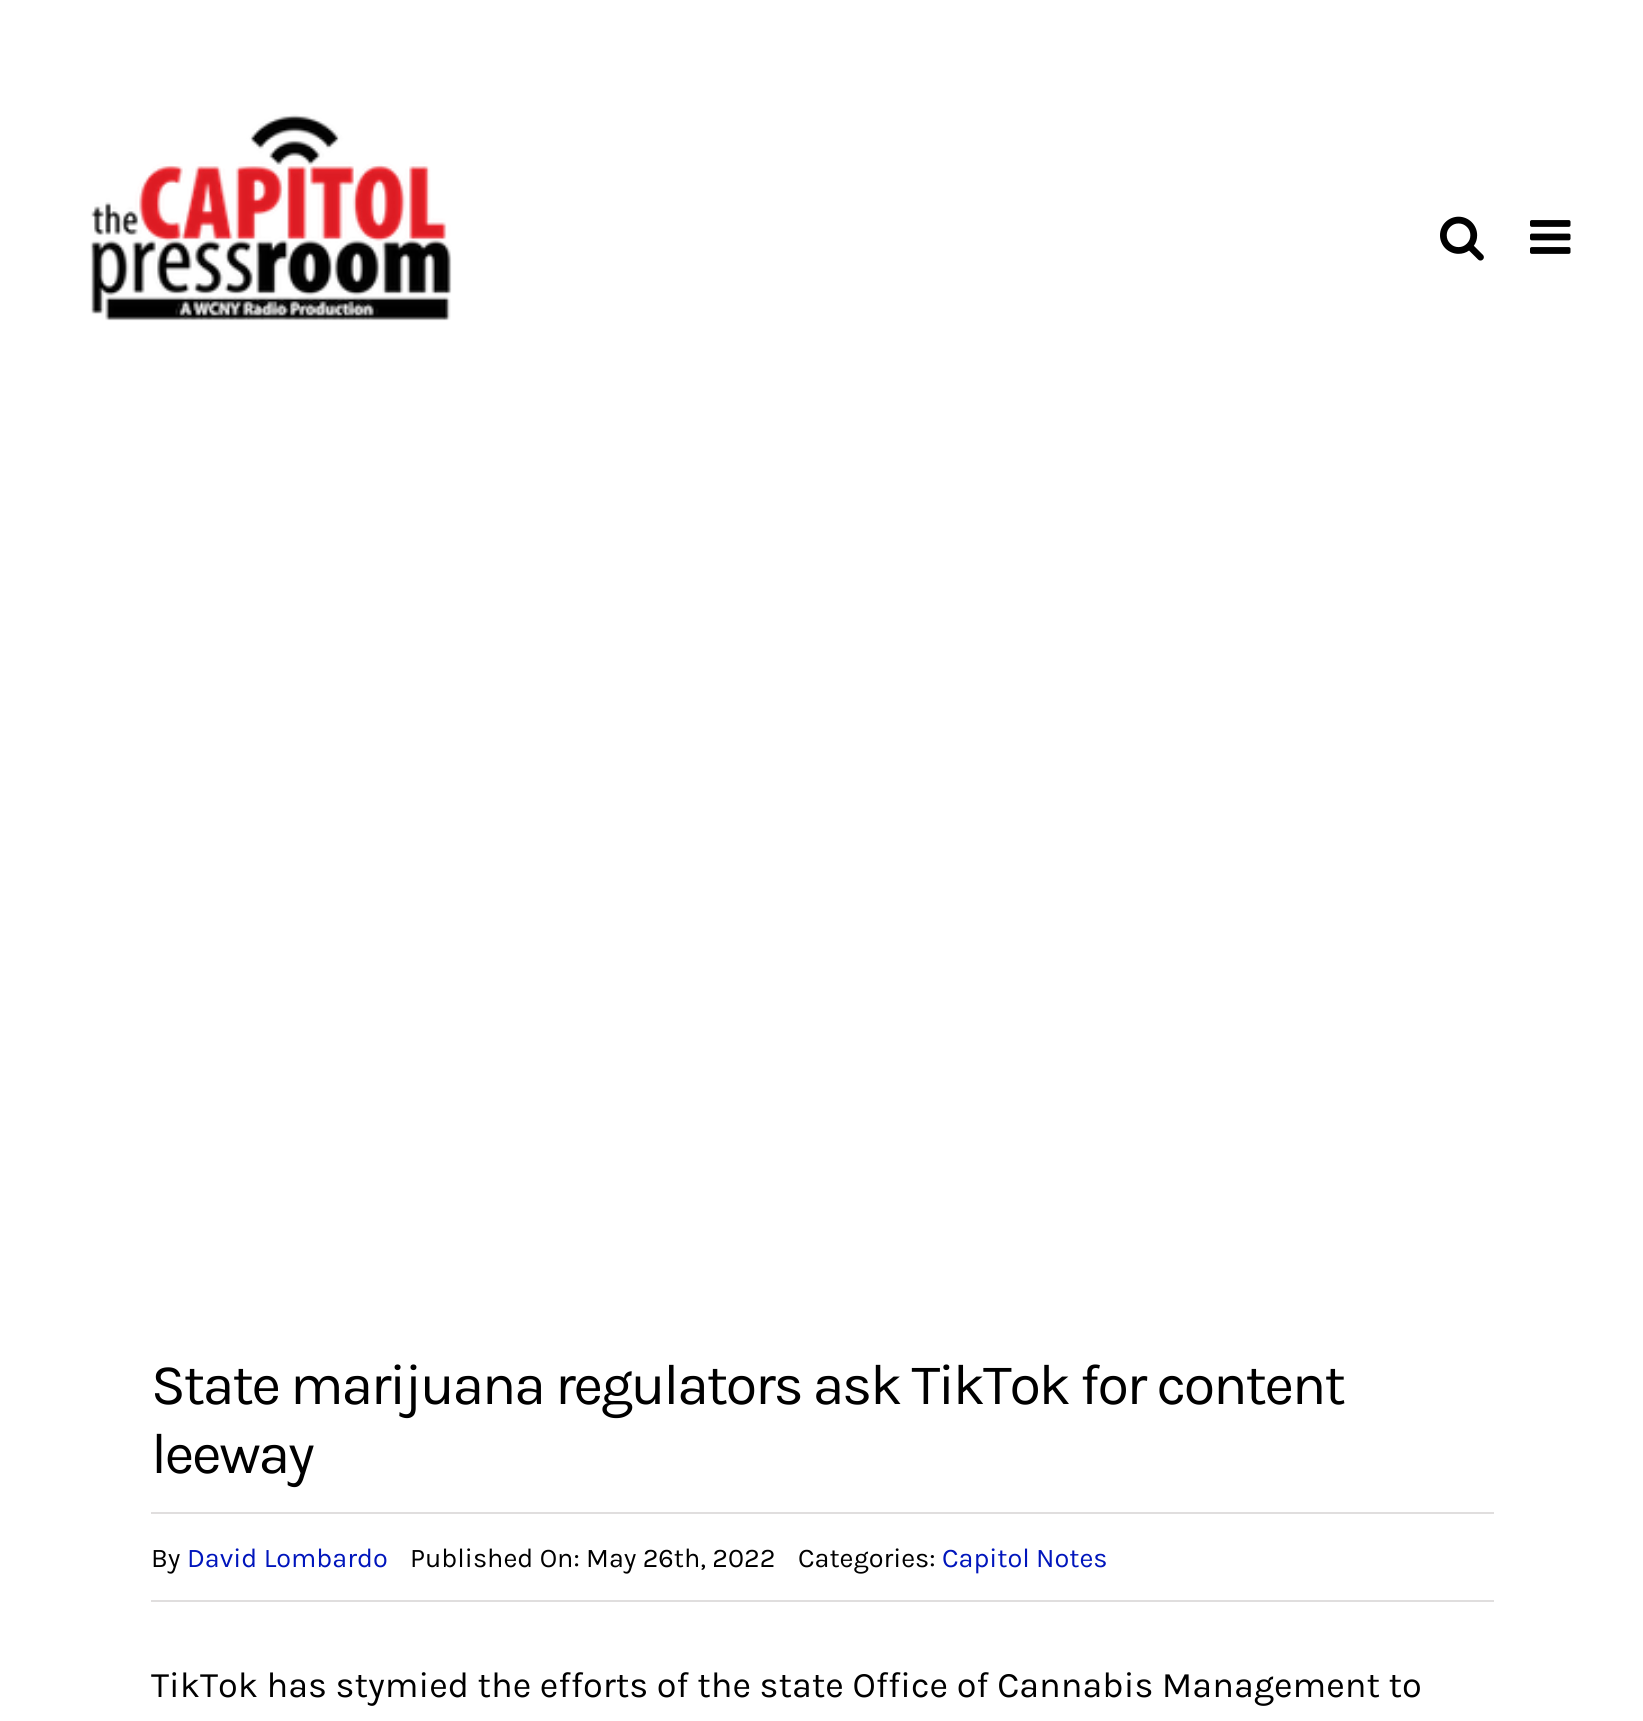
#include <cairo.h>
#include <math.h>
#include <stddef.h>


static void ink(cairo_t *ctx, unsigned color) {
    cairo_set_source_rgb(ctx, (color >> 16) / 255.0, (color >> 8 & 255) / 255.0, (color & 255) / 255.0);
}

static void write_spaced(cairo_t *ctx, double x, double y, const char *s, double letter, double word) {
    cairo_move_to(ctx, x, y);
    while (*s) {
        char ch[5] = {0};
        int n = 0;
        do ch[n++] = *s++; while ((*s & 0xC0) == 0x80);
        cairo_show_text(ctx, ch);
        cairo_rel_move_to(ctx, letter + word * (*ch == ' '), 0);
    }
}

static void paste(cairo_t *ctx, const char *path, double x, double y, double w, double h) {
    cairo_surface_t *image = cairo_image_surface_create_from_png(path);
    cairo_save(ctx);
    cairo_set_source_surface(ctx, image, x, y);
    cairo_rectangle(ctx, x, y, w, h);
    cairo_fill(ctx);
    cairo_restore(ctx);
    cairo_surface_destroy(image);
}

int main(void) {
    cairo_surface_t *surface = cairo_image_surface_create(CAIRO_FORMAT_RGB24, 1643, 1721);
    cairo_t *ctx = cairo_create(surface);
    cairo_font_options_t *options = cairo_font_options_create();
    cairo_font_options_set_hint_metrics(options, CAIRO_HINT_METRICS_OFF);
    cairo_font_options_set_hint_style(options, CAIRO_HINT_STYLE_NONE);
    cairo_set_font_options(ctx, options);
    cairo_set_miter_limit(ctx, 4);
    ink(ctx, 0xFFFFFF);
    cairo_paint(ctx);
    paste(ctx, "media/1.png", 90, 114, 362, 207);
    paste(ctx, "media/2.png", 1440, 216, 44, 45);
    paste(ctx, "media/3.png", 1530, 220, 41, 34);
    cairo_select_font_face(ctx, "Karla", CAIRO_FONT_SLANT_NORMAL, CAIRO_FONT_WEIGHT_NORMAL);
    cairo_set_font_size(ctx, 57.4);
    ink(ctx, 0x000000);
    write_spaced(ctx, 151, 1404, "State marijuana regulators ask TikTok for content", -2.25, 0);
    write_spaced(ctx, 151, 1473, "leeway", -2.25, 0);
    ink(ctx, 0xE0DEDE);
    cairo_rectangle(ctx, 151, 1512, 1343, 2);
    cairo_fill(ctx);
    cairo_rectangle(ctx, 151, 1600, 1343, 2);
    cairo_fill(ctx);
    cairo_set_font_size(ctx, 27);
    ink(ctx, 0x000000);
    cairo_move_to(ctx, 151, 1567);
    cairo_show_text(ctx, "By");
    ink(ctx, 0x0015BC);
    cairo_move_to(ctx, 187, 1567);
    cairo_show_text(ctx, "David Lombardo");
    ink(ctx, 0x000000);
    cairo_move_to(ctx, 410, 1567);
    cairo_show_text(ctx, "Published On: May 26th, 2022");
    cairo_move_to(ctx, 798, 1567);
    cairo_show_text(ctx, "Categories:");
    ink(ctx, 0x0015BC);
    cairo_move_to(ctx, 942, 1567);
    cairo_show_text(ctx, "Capitol Notes");
    cairo_set_font_size(ctx, 36);
    ink(ctx, 0x000000);
    cairo_move_to(ctx, 151, 1697);
    cairo_show_text(ctx, "TikTok has stymied the efforts of the state Office of Cannabis Management to");
    cairo_surface_write_to_png(surface, "image.png");
    cairo_font_options_destroy(options);
    cairo_destroy(ctx);
    cairo_surface_destroy(surface);
    return 0;
}
